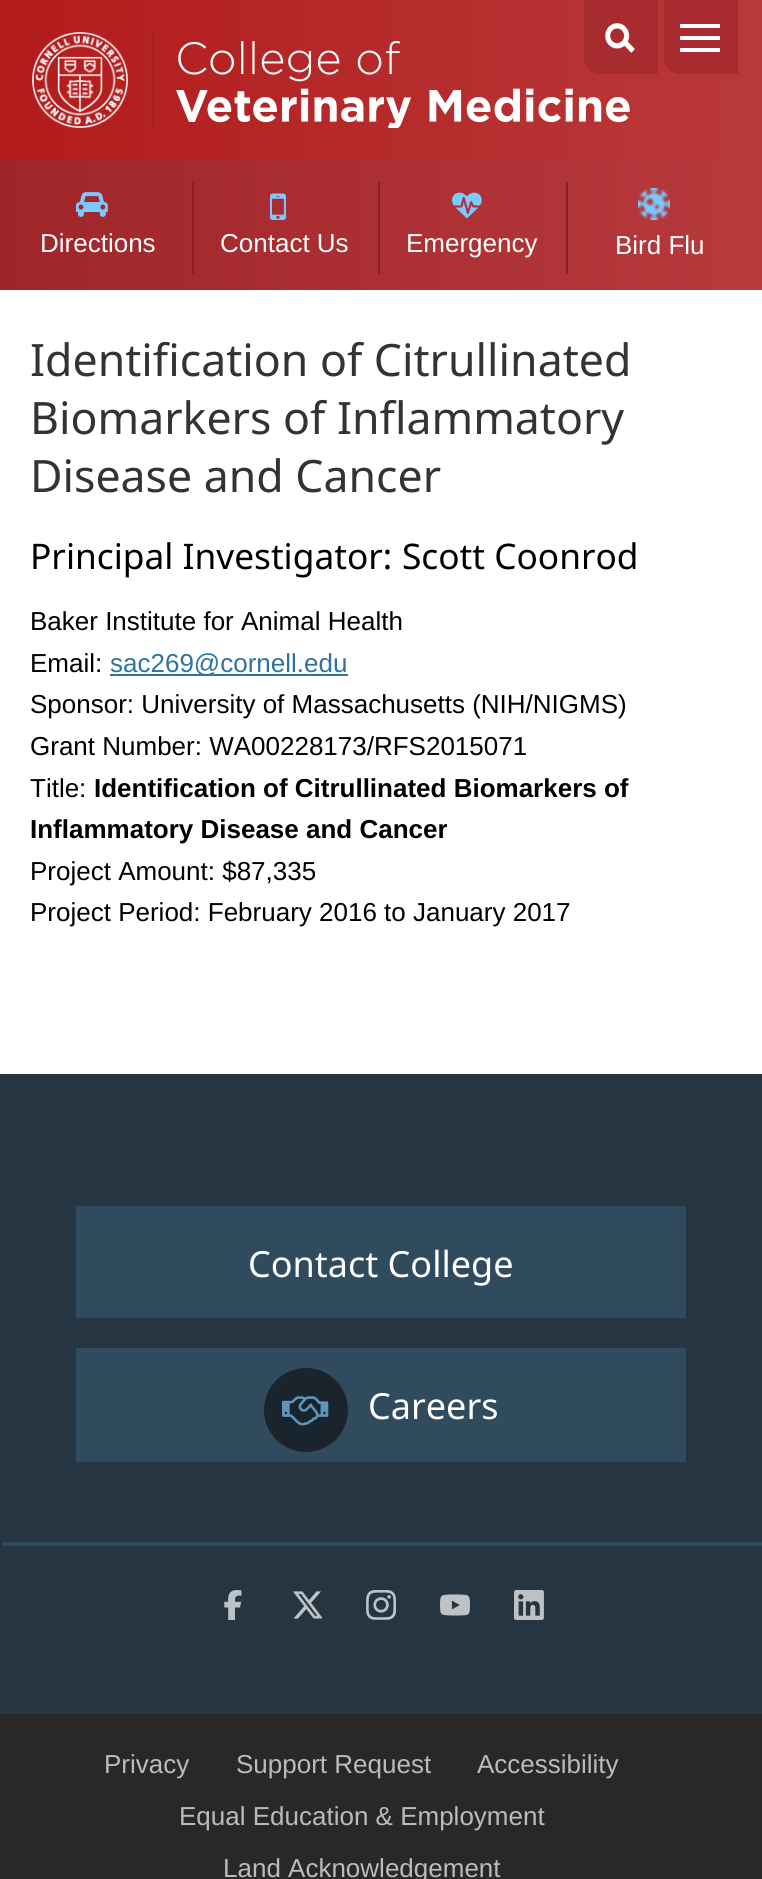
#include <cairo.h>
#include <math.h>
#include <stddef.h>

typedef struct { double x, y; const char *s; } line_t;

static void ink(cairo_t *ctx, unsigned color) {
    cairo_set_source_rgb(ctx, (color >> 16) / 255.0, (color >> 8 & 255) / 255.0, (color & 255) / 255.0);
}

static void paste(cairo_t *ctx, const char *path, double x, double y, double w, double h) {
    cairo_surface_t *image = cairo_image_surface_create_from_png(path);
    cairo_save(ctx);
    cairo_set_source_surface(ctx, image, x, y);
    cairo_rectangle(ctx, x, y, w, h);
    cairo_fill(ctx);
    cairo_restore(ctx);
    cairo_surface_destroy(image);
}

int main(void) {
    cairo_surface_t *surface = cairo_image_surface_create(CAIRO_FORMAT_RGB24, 762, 1879);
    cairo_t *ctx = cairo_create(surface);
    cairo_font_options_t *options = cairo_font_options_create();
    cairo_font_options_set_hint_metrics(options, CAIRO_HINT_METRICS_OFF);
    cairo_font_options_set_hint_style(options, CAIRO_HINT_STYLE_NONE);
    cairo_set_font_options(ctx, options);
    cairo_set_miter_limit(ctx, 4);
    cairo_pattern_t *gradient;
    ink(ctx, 0x282828);
    cairo_paint(ctx);
    gradient = cairo_pattern_create_linear(0, 145, 762, 145);
    cairo_pattern_add_color_stop_rgba(gradient, 0, 0.627, 0.145, 0.161, 1);
    cairo_pattern_add_color_stop_rgba(gradient, 1, 0.718, 0.227, 0.239, 1);
    cairo_set_source(ctx, gradient);
    cairo_pattern_destroy(gradient);
    cairo_rectangle(ctx, 0, 160, 762, 130);
    cairo_fill(ctx);
    gradient = cairo_pattern_create_linear(0, 80, 762, 80);
    cairo_pattern_add_color_stop_rgba(gradient, 0, 0.702, 0.106, 0.106, 1);
    cairo_pattern_add_color_stop_rgba(gradient, 1, 0.725, 0.224, 0.231, 1);
    cairo_set_source(ctx, gradient);
    cairo_pattern_destroy(gradient);
    cairo_rectangle(ctx, 0, 0, 762, 160);
    cairo_fill(ctx);
    paste(ctx, "media/1.png", 32, 32, 96, 96);
    ink(ctx, 0xA21E1E);
    cairo_rectangle(ctx, 152, 32, 2, 96);
    cairo_fill(ctx);
    paste(ctx, "media/2.png", 176, 41, 454, 87);
    ink(ctx, 0xA72B2F);
    cairo_new_path(ctx);
    cairo_move_to(ctx, 584, 0);
    cairo_line_to(ctx, 658, 0);
    cairo_line_to(ctx, 658, 74);
    cairo_line_to(ctx, 600, 74);
    cairo_curve_to(ctx, 591, 74, 584, 67, 584, 58);
    cairo_close_path(ctx);
    cairo_fill(ctx);
    paste(ctx, "media/3.png", 605, 23, 30, 30);
    cairo_new_path(ctx);
    cairo_move_to(ctx, 664, 0);
    cairo_line_to(ctx, 738, 0);
    cairo_line_to(ctx, 738, 74);
    cairo_line_to(ctx, 680, 74);
    cairo_curve_to(ctx, 671, 74, 664, 67, 664, 58);
    cairo_close_path(ctx);
    cairo_fill(ctx);
    paste(ctx, "media/4.png", 680, 24, 40, 28);
    ink(ctx, 0x89202B);
    cairo_rectangle(ctx, 192, 182, 2, 92);
    cairo_fill(ctx);
    paste(ctx, "media/5.png", 76, 192, 32, 25);
    cairo_select_font_face(ctx, "Liberation Sans", CAIRO_FONT_SLANT_NORMAL, CAIRO_FONT_WEIGHT_NORMAL);
    cairo_set_font_size(ctx, 26);
    ink(ctx, 0xFFFFFF);
    cairo_move_to(ctx, 40, 252);
    cairo_show_text(ctx, "Directions");
    ink(ctx, 0x89202B);
    cairo_rectangle(ctx, 378, 182, 2, 92);
    cairo_fill(ctx);
    paste(ctx, "media/6.png", 270, 193, 16, 27);
    ink(ctx, 0xFFFFFF);
    cairo_move_to(ctx, 220, 252);
    cairo_show_text(ctx, "Contact Us");
    ink(ctx, 0x89202B);
    cairo_rectangle(ctx, 566, 182, 2, 92);
    cairo_fill(ctx);
    paste(ctx, "media/7.png", 452, 192, 30, 27);
    ink(ctx, 0xFFFFFF);
    cairo_move_to(ctx, 406, 252);
    cairo_show_text(ctx, "Emergency");
    paste(ctx, "media/8.png", 638, 188, 32, 32);
    cairo_move_to(ctx, 615, 254);
    cairo_show_text(ctx, "Bird Flu");
    cairo_rectangle(ctx, 0, 290, 762, 784);
    cairo_fill(ctx);
    cairo_select_font_face(ctx, "Noto Sans", CAIRO_FONT_SLANT_NORMAL, CAIRO_FONT_WEIGHT_NORMAL);
    cairo_set_font_size(ctx, 44.6);
    ink(ctx, 0x333333);
    {
        static const line_t items[] = {
            {30, 376, "Identification of Citrullinated"},
            {30, 434, "Biomarkers of Inflammatory"},
            {30, 492, "Disease and Cancer"},
        };
        for (size_t i = 0; i < sizeof items / sizeof *items; i++) {
            cairo_move_to(ctx, items[i].x, items[i].y);
            cairo_show_text(ctx, items[i].s);
        }
    }
    cairo_set_font_size(ctx, 35.25);
    ink(ctx, 0x000000);
    cairo_move_to(ctx, 30, 569);
    cairo_show_text(ctx, "Principal Investigator:");
    cairo_move_to(ctx, 402, 569);
    cairo_show_text(ctx, "Scott Coonrod");
    cairo_select_font_face(ctx, "Liberation Sans", CAIRO_FONT_SLANT_NORMAL, CAIRO_FONT_WEIGHT_NORMAL);
    cairo_set_font_size(ctx, 26);
    cairo_move_to(ctx, 30, 630);
    cairo_show_text(ctx, "Baker Institute for Animal Health");
    cairo_move_to(ctx, 30, 672);
    cairo_show_text(ctx, "Email:");
    ink(ctx, 0x2F739E);
    cairo_rectangle(ctx, 110, 674, 238, 2);
    cairo_fill(ctx);
    cairo_move_to(ctx, 110, 672);
    cairo_show_text(ctx, "sac269@cornell.edu");
    ink(ctx, 0x000000);
    {
        static const line_t items[] = {
            {30, 713, "Sponsor: University of Massachusetts (NIH/NIGMS)"},
            {30, 755, "Grant Number: WA00228173/RFS2015071"},
            {30, 797, "Title:"},
        };
        for (size_t i = 0; i < sizeof items / sizeof *items; i++) {
            cairo_move_to(ctx, items[i].x, items[i].y);
            cairo_show_text(ctx, items[i].s);
        }
    }
    cairo_select_font_face(ctx, "Liberation Sans", CAIRO_FONT_SLANT_NORMAL, CAIRO_FONT_WEIGHT_BOLD);
    cairo_move_to(ctx, 94, 797);
    cairo_show_text(ctx, "Identification of Citrullinated Biomarkers of");
    cairo_move_to(ctx, 30, 838);
    cairo_show_text(ctx, "Inflammatory Disease and Cancer");
    cairo_select_font_face(ctx, "Liberation Sans", CAIRO_FONT_SLANT_NORMAL, CAIRO_FONT_WEIGHT_NORMAL);
    cairo_move_to(ctx, 30, 880);
    cairo_show_text(ctx, "Project Amount: $87,335");
    cairo_move_to(ctx, 30, 921);
    cairo_show_text(ctx, "Project Period: February 2016 to January 2017");
    ink(ctx, 0x253541);
    cairo_rectangle(ctx, 0, 1074, 762, 640);
    cairo_fill(ctx);
    ink(ctx, 0x2F4B5D);
    cairo_rectangle(ctx, 76, 1206, 610, 112);
    cairo_fill(ctx);
    cairo_select_font_face(ctx, "Noto Sans", CAIRO_FONT_SLANT_NORMAL, CAIRO_FONT_WEIGHT_NORMAL);
    cairo_set_font_size(ctx, 36);
    ink(ctx, 0xFFFFFF);
    cairo_move_to(ctx, 248, 1277);
    cairo_show_text(ctx, "Contact College");
    ink(ctx, 0x2F4B5D);
    cairo_rectangle(ctx, 76, 1348, 610, 114);
    cairo_fill(ctx);
    ink(ctx, 0x19242D);
    cairo_arc(ctx, 306, 1410, 42, 0, 2 * M_PI);
    cairo_fill(ctx);
    paste(ctx, "media/9.png", 282, 1396, 47, 30);
    ink(ctx, 0xFFFFFF);
    cairo_move_to(ctx, 368, 1419);
    cairo_show_text(ctx, "Careers");
    ink(ctx, 0x304B5D);
    cairo_rectangle(ctx, 2, 1542, 760, 4);
    cairo_fill(ctx);
    paste(ctx, "media/10.png", 224, 1590, 18, 30);
    paste(ctx, "media/11.png", 293, 1591, 29, 28);
    paste(ctx, "media/12.png", 366, 1590, 30, 30);
    paste(ctx, "media/13.png", 440, 1594, 30, 22);
    paste(ctx, "media/14.png", 514, 1590, 30, 30);
    cairo_select_font_face(ctx, "Liberation Sans", CAIRO_FONT_SLANT_NORMAL, CAIRO_FONT_WEIGHT_NORMAL);
    cairo_set_font_size(ctx, 26);
    ink(ctx, 0xBBBBBB);
    {
        static const line_t items[] = {
            {104, 1773, "Privacy"},
            {236, 1773, "Support Request"},
            {477, 1773, "Accessibility"},
            {179, 1825, "Equal Education & Employment"},
            {223, 1877, "Land Acknowledgement"},
        };
        for (size_t i = 0; i < sizeof items / sizeof *items; i++) {
            cairo_move_to(ctx, items[i].x, items[i].y);
            cairo_show_text(ctx, items[i].s);
        }
    }
    cairo_surface_write_to_png(surface, "image.png");
    cairo_font_options_destroy(options);
    cairo_destroy(ctx);
    cairo_surface_destroy(surface);
    return 0;
}
